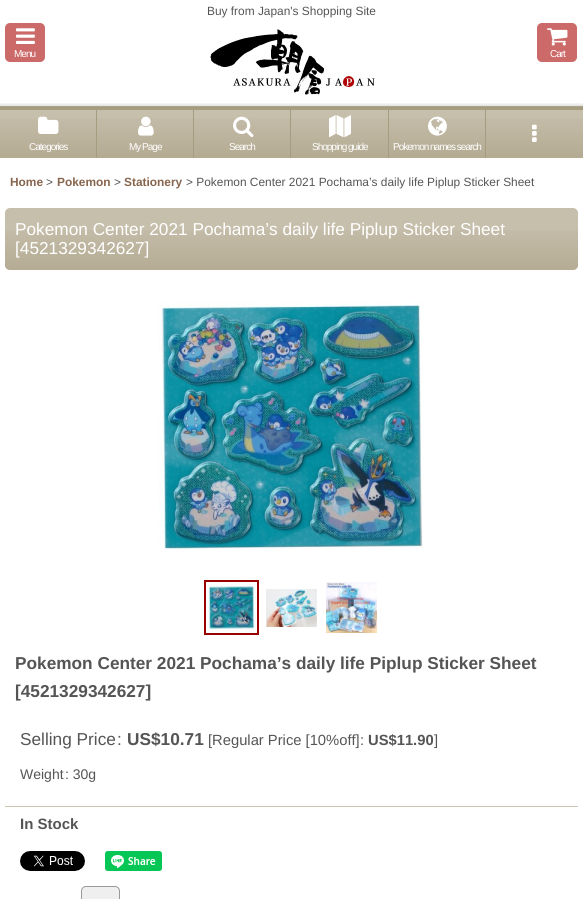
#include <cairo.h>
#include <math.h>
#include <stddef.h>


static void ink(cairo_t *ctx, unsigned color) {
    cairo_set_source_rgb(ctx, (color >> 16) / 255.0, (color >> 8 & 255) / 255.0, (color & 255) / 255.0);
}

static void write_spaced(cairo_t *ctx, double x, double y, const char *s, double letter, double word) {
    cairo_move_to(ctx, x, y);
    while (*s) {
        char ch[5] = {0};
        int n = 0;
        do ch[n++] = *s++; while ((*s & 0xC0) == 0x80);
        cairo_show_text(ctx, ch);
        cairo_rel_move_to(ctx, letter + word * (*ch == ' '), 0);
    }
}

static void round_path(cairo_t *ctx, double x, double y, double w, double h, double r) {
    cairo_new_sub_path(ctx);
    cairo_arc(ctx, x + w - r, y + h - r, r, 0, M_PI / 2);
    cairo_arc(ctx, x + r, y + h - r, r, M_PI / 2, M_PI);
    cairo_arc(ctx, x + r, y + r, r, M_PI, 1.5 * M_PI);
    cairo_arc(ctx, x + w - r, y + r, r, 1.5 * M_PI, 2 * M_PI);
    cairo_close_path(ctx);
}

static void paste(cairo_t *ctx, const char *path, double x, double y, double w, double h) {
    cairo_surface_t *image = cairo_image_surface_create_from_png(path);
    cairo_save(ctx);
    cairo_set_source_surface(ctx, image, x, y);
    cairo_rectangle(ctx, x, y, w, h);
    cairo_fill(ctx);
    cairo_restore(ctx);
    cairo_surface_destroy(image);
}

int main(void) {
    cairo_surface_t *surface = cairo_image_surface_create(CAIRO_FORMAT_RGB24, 583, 899);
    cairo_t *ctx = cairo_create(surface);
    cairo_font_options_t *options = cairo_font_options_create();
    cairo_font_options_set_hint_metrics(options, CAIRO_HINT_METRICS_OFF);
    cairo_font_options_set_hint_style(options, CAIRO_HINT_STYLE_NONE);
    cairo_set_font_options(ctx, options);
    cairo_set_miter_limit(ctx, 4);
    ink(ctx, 0xFFFFFF);
    cairo_paint(ctx);
    paste(ctx, "media/1.png", 0, 103, 583, 7);
    cairo_select_font_face(ctx, "Liberation Sans", CAIRO_FONT_SLANT_NORMAL, CAIRO_FONT_WEIGHT_NORMAL);
    cairo_set_font_size(ctx, 11.9);
    ink(ctx, 0x555555);
    cairo_move_to(ctx, 207, 15);
    cairo_show_text(ctx, "Buy from Japan's Shopping Site");
    ink(ctx, 0xCC6969);
    round_path(ctx, 5, 23, 40, 39, 5);
    cairo_fill(ctx);
    paste(ctx, "media/2.png", 16, 28, 19, 16);
    cairo_set_font_size(ctx, 10);
    ink(ctx, 0xFFFFFF);
    write_spaced(ctx, 14, 57, "Menu", -1, 0);
    paste(ctx, "media/3.png", 210, 29, 167, 66);
    ink(ctx, 0xCC6969);
    round_path(ctx, 537, 23, 40, 39, 5);
    cairo_fill(ctx);
    paste(ctx, "media/4.png", 547, 28, 21, 18);
    ink(ctx, 0xFFFFFF);
    write_spaced(ctx, 550, 57, "Cart", -1, 0);
    ink(ctx, 0xC6BFAC);
    cairo_rectangle(ctx, 0, 110, 96, 8);
    cairo_fill(ctx);
    paste(ctx, "media/5.png", 0, 118, 96, 40);
    ink(ctx, 0xA69D80);
    cairo_rectangle(ctx, 96, 110, 1, 48);
    cairo_fill(ctx);
    paste(ctx, "media/6.png", 38, 116, 21, 18);
    ink(ctx, 0xFFFFFF);
    write_spaced(ctx, 29, 150, "Categories", -1, 0);
    ink(ctx, 0xC6BFAC);
    cairo_rectangle(ctx, 97, 110, 96, 8);
    cairo_fill(ctx);
    paste(ctx, "media/5.png", 97, 118, 96, 40);
    ink(ctx, 0xA69D80);
    cairo_rectangle(ctx, 193, 110, 1, 48);
    cairo_fill(ctx);
    paste(ctx, "media/7.png", 138, 116, 16, 20);
    ink(ctx, 0xFFFFFF);
    write_spaced(ctx, 129, 150, "My Page", -1, 0);
    ink(ctx, 0xC6BFAC);
    cairo_rectangle(ctx, 194, 110, 96, 8);
    cairo_fill(ctx);
    paste(ctx, "media/5.png", 194, 118, 96, 40);
    ink(ctx, 0xA69D80);
    cairo_rectangle(ctx, 290, 110, 1, 48);
    cairo_fill(ctx);
    paste(ctx, "media/8.png", 233, 116, 21, 22);
    ink(ctx, 0xFFFFFF);
    write_spaced(ctx, 229, 150, "Search", -1, 0);
    ink(ctx, 0xC6BFAC);
    cairo_rectangle(ctx, 291, 110, 97, 8);
    cairo_fill(ctx);
    paste(ctx, "media/9.png", 291, 118, 97, 40);
    ink(ctx, 0xA69D80);
    cairo_rectangle(ctx, 388, 110, 1, 48);
    cairo_fill(ctx);
    paste(ctx, "media/10.png", 329, 115, 22, 23);
    ink(ctx, 0xFFFFFF);
    write_spaced(ctx, 312, 150, "Shopping guide", -1, 0);
    ink(ctx, 0xC6BFAC);
    cairo_rectangle(ctx, 389, 110, 96, 8);
    cairo_fill(ctx);
    paste(ctx, "media/5.png", 389, 118, 96, 40);
    ink(ctx, 0xA69D80);
    cairo_rectangle(ctx, 485, 110, 1, 48);
    cairo_fill(ctx);
    paste(ctx, "media/11.png", 428, 116, 19, 20);
    ink(ctx, 0xFFFFFF);
    write_spaced(ctx, 393, 150, "Pokemon names search", -1, 0);
    ink(ctx, 0xC6BFAC);
    cairo_rectangle(ctx, 486, 110, 97, 8);
    cairo_fill(ctx);
    paste(ctx, "media/9.png", 486, 118, 97, 40);
    paste(ctx, "media/12.png", 532, 124, 5, 18);
    cairo_select_font_face(ctx, "Liberation Sans", CAIRO_FONT_SLANT_NORMAL, CAIRO_FONT_WEIGHT_BOLD);
    cairo_set_font_size(ctx, 11.9);
    ink(ctx, 0x87654E);
    cairo_move_to(ctx, 10, 186);
    cairo_show_text(ctx, "Home");
    cairo_select_font_face(ctx, "Liberation Sans", CAIRO_FONT_SLANT_NORMAL, CAIRO_FONT_WEIGHT_NORMAL);
    ink(ctx, 0x555555);
    cairo_move_to(ctx, 46, 186);
    cairo_show_text(ctx, ">");
    cairo_select_font_face(ctx, "Liberation Sans", CAIRO_FONT_SLANT_NORMAL, CAIRO_FONT_WEIGHT_BOLD);
    ink(ctx, 0x87654E);
    cairo_move_to(ctx, 57, 186);
    cairo_show_text(ctx, "Pokemon");
    cairo_select_font_face(ctx, "Liberation Sans", CAIRO_FONT_SLANT_NORMAL, CAIRO_FONT_WEIGHT_NORMAL);
    ink(ctx, 0x555555);
    cairo_move_to(ctx, 114, 186);
    cairo_show_text(ctx, ">");
    cairo_select_font_face(ctx, "Liberation Sans", CAIRO_FONT_SLANT_NORMAL, CAIRO_FONT_WEIGHT_BOLD);
    ink(ctx, 0x87654E);
    cairo_move_to(ctx, 124, 186);
    cairo_show_text(ctx, "Stationery");
    cairo_select_font_face(ctx, "Liberation Sans", CAIRO_FONT_SLANT_NORMAL, CAIRO_FONT_WEIGHT_NORMAL);
    ink(ctx, 0x555555);
    cairo_move_to(ctx, 186, 186);
    cairo_show_text(ctx, "> Pokemon Center 2021 Pochama’s daily life Piplup Sticker Sheet");
    ink(ctx, 0xC6BFAC);
    round_path(ctx, 5, 208, 573, 62, 5);
    cairo_fill(ctx);
    paste(ctx, "media/13.png", 5, 230, 573, 40);
    cairo_set_font_size(ctx, 17.25);
    ink(ctx, 0xFFFFFF);
    cairo_move_to(ctx, 15, 235);
    cairo_show_text(ctx, "Pokemon Center 2021 Pochama’s daily life Piplup Sticker Sheet");
    cairo_move_to(ctx, 15, 254);
    cairo_show_text(ctx, "[4521329342627]");
    paste(ctx, "media/14.png", 158, 301, 265, 248);
    cairo_rectangle(ctx, 205, 581, 53, 53);
    ink(ctx, 0x990000);
    cairo_stroke(ctx);
    paste(ctx, "media/15.png", 206, 582, 51, 51);
    paste(ctx, "media/16.png", 266, 589, 51, 38);
    paste(ctx, "media/17.png", 326, 582, 51, 51);
    cairo_select_font_face(ctx, "Liberation Sans", CAIRO_FONT_SLANT_NORMAL, CAIRO_FONT_WEIGHT_BOLD);
    ink(ctx, 0x555555);
    cairo_move_to(ctx, 15, 669);
    cairo_show_text(ctx, "Pokemon Center 2021 Pochama’s daily life Piplup Sticker Sheet");
    cairo_move_to(ctx, 15, 697);
    cairo_show_text(ctx, "[4521329342627]");
    ink(ctx, 0xCAC5B3);
    cairo_rectangle(ctx, 5, 806, 573, 1);
    cairo_fill(ctx);
    cairo_select_font_face(ctx, "Liberation Sans", CAIRO_FONT_SLANT_NORMAL, CAIRO_FONT_WEIGHT_NORMAL);
    ink(ctx, 0x555555);
    cairo_move_to(ctx, 20, 745);
    cairo_show_text(ctx, "Selling Price");
    cairo_move_to(ctx, 117, 745);
    cairo_show_text(ctx, ":");
    cairo_select_font_face(ctx, "Liberation Sans", CAIRO_FONT_SLANT_NORMAL, CAIRO_FONT_WEIGHT_BOLD);
    cairo_move_to(ctx, 127, 745);
    cairo_show_text(ctx, "US$10.71");
    cairo_select_font_face(ctx, "Liberation Sans", CAIRO_FONT_SLANT_NORMAL, CAIRO_FONT_WEIGHT_NORMAL);
    cairo_set_font_size(ctx, 14.75);
    cairo_move_to(ctx, 208, 745);
    cairo_show_text(ctx, "[Regular Price [10%off]");
    cairo_move_to(ctx, 360, 745);
    cairo_show_text(ctx, ":");
    cairo_select_font_face(ctx, "Liberation Sans", CAIRO_FONT_SLANT_NORMAL, CAIRO_FONT_WEIGHT_BOLD);
    cairo_move_to(ctx, 368, 745);
    cairo_show_text(ctx, "US$11.90");
    cairo_select_font_face(ctx, "Liberation Sans", CAIRO_FONT_SLANT_NORMAL, CAIRO_FONT_WEIGHT_NORMAL);
    cairo_move_to(ctx, 434, 745);
    cairo_show_text(ctx, "]");
    cairo_set_font_size(ctx, 14);
    cairo_move_to(ctx, 20, 779);
    cairo_show_text(ctx, "Weight");
    cairo_move_to(ctx, 65, 779);
    cairo_show_text(ctx, ": 30g");
    cairo_select_font_face(ctx, "Liberation Sans", CAIRO_FONT_SLANT_NORMAL, CAIRO_FONT_WEIGHT_BOLD);
    cairo_set_font_size(ctx, 15);
    cairo_move_to(ctx, 20, 829);
    cairo_show_text(ctx, "In Stock");
    paste(ctx, "media/18.png", 20, 851, 65, 20);
    paste(ctx, "media/19.png", 105, 851, 57, 20);
    ink(ctx, 0xEFEFEF);
    round_path(ctx, 81.5, 886.5, 38, 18, 4.5);
    cairo_fill_preserve(ctx);
    ink(ctx, 0x999999);
    cairo_set_line_width(ctx, 1);
    cairo_stroke(ctx);
    cairo_surface_write_to_png(surface, "image.png");
    cairo_font_options_destroy(options);
    cairo_destroy(ctx);
    cairo_surface_destroy(surface);
    return 0;
}
